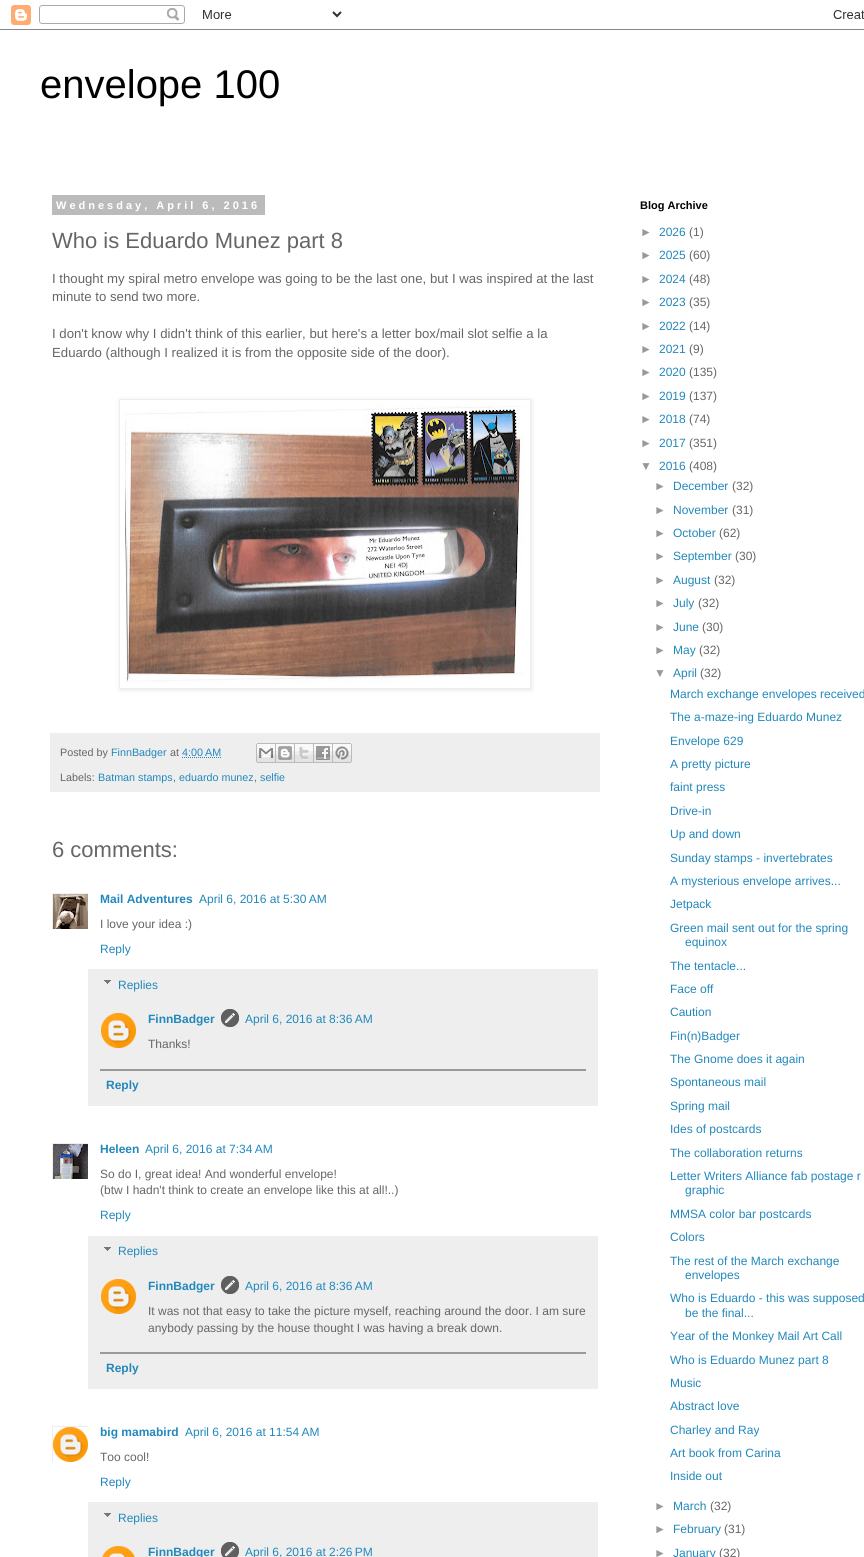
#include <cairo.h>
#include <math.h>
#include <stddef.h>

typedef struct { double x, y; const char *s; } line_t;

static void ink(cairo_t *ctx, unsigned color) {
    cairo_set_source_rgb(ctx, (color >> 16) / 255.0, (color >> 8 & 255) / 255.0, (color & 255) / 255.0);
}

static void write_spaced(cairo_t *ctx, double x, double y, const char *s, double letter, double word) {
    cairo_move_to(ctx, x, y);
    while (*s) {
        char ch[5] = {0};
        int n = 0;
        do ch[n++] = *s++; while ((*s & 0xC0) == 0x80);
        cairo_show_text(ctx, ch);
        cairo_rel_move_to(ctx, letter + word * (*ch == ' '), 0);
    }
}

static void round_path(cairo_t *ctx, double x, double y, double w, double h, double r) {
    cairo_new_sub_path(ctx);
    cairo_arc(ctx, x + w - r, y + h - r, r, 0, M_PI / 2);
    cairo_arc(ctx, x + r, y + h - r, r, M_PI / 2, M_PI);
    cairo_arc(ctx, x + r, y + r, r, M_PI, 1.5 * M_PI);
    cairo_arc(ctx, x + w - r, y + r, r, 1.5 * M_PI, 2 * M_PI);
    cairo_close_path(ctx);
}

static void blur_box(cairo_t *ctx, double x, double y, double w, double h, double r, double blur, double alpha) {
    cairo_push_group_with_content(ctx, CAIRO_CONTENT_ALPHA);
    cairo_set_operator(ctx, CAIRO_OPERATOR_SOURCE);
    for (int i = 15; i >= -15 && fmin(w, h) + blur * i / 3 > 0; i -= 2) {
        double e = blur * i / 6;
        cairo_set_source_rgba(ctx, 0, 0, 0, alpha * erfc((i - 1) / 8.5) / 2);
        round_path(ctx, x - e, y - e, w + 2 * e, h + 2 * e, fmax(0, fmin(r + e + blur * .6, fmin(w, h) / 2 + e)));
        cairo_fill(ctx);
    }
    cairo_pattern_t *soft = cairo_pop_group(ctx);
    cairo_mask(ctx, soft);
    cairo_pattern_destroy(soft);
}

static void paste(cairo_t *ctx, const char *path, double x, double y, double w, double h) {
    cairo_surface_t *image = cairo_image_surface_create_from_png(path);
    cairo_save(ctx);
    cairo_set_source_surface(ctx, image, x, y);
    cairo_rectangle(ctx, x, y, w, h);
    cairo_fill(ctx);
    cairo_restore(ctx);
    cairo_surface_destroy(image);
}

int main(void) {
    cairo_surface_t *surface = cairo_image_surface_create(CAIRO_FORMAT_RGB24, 864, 1557);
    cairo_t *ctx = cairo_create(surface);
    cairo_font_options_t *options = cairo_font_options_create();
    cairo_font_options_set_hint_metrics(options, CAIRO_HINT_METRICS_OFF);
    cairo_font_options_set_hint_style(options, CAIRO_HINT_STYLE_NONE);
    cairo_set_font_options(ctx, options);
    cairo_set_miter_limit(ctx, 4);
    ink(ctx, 0xFFFFFF);
    cairo_paint(ctx);
    paste(ctx, "media/1.png", 0, 5, 864, 25);
    cairo_select_font_face(ctx, "Liberation Sans", CAIRO_FONT_SLANT_NORMAL, CAIRO_FONT_WEIGHT_NORMAL);
    cairo_set_font_size(ctx, 40);
    ink(ctx, 0x000000);
    cairo_move_to(ctx, 40, 98);
    cairo_show_text(ctx, "envelope 100");
    ink(ctx, 0xBBBBBB);
    cairo_rectangle(ctx, 52, 195, 213, 20);
    cairo_fill(ctx);
    cairo_select_font_face(ctx, "Liberation Sans", CAIRO_FONT_SLANT_NORMAL, CAIRO_FONT_WEIGHT_BOLD);
    cairo_set_font_size(ctx, 11);
    ink(ctx, 0xFFFFFF);
    write_spaced(ctx, 56, 209, "Wednesday, April 6, 2016", 3, 0);
    cairo_select_font_face(ctx, "Liberation Sans", CAIRO_FONT_SLANT_NORMAL, CAIRO_FONT_WEIGHT_NORMAL);
    cairo_set_font_size(ctx, 22);
    ink(ctx, 0x666666);
    cairo_move_to(ctx, 52, 248);
    cairo_show_text(ctx, "Who is Eduardo Munez part 8");
    cairo_set_font_size(ctx, 13.2);
    {
        static const line_t items[] = {
            {52, 283, "I thought my spiral metro envelope was going to be the last one, but I was inspired at the last"},
            {52, 301, "minute to send two more."},
            {52, 338, "I don't know why I didn't think of this earlier, but here's a letter box/mail slot selfie a la"},
            {52, 357, "Eduardo (although I realized it is from the opposite side of the door)."},
        };
        for (size_t i = 0; i < sizeof items / sizeof *items; i++) {
            cairo_move_to(ctx, items[i].x, items[i].y);
            cairo_show_text(ctx, items[i].s);
        }
    }
    cairo_save(ctx);
    cairo_set_fill_rule(ctx, CAIRO_FILL_RULE_EVEN_ODD);
    cairo_new_path(ctx);
    cairo_move_to(ctx, 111, 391);
    cairo_line_to(ctx, 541, 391);
    cairo_line_to(ctx, 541, 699);
    cairo_line_to(ctx, 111, 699);
    cairo_close_path(ctx);
    cairo_move_to(ctx, 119, 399);
    cairo_line_to(ctx, 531, 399);
    cairo_line_to(ctx, 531, 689);
    cairo_line_to(ctx, 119, 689);
    cairo_close_path(ctx);
    cairo_clip(ctx);
    ink(ctx, 0x000000);
    blur_box(ctx, 120, 400, 412, 290, 0, 2.5, 0.1);
    cairo_restore(ctx);
    cairo_rectangle(ctx, 119.5, 399.5, 411, 289);
    ink(ctx, 0xEEEEEE);
    cairo_set_line_width(ctx, 1);
    cairo_stroke(ctx);
    paste(ctx, "media/2.png", 125, 405, 400, 278);
    cairo_rectangle(ctx, 50, 733, 550, 59);
    cairo_fill(ctx);
    cairo_set_font_size(ctx, 10.75);
    ink(ctx, 0x666666);
    cairo_move_to(ctx, 60, 756);
    cairo_show_text(ctx, "Posted by");
    ink(ctx, 0x2288BB);
    cairo_move_to(ctx, 111, 756);
    cairo_show_text(ctx, "FinnBadger");
    ink(ctx, 0x666666);
    cairo_move_to(ctx, 170, 756);
    cairo_show_text(ctx, "at");
    ink(ctx, 0x2288BB);
    cairo_move_to(ctx, 182, 756);
    cairo_show_text(ctx, "4:00 AM");
    cairo_new_path(ctx);
    cairo_move_to(ctx, 182, 757.5);
    cairo_line_to(ctx, 221, 757.5);
    cairo_set_dash(ctx, (double[]){1, 1}, 2, 0);
    cairo_stroke(ctx);
    paste(ctx, "media/3.png", 256, 743, 20, 20);
    paste(ctx, "media/4.png", 276, 743, 19, 20);
    paste(ctx, "media/5.png", 295, 743, 19, 20);
    paste(ctx, "media/6.png", 314, 743, 19, 20);
    paste(ctx, "media/7.png", 333, 743, 19, 20);
    ink(ctx, 0x666666);
    cairo_move_to(ctx, 60, 781);
    cairo_show_text(ctx, "Labels:");
    ink(ctx, 0x2288BB);
    cairo_move_to(ctx, 98, 781);
    cairo_show_text(ctx, "Batman stamps");
    ink(ctx, 0x666666);
    cairo_move_to(ctx, 173, 781);
    cairo_show_text(ctx, ",");
    ink(ctx, 0x2288BB);
    cairo_move_to(ctx, 179, 781);
    cairo_show_text(ctx, "eduardo munez");
    ink(ctx, 0x666666);
    cairo_move_to(ctx, 254, 781);
    cairo_show_text(ctx, ",");
    ink(ctx, 0x2288BB);
    cairo_move_to(ctx, 260, 781);
    cairo_show_text(ctx, "selfie");
    cairo_set_font_size(ctx, 22);
    ink(ctx, 0x666666);
    cairo_move_to(ctx, 52, 857);
    cairo_show_text(ctx, "6 comments:");
    cairo_save(ctx);
    cairo_rectangle(ctx, 52, 893, 36, 36);
    cairo_clip(ctx);
    cairo_rectangle(ctx, 52.5, 893.5, 36, 36);
    ink(ctx, 0xEEEEEE);
    cairo_set_dash(ctx, NULL, 0, 0);
    cairo_stroke(ctx);
    cairo_restore(ctx);
    paste(ctx, "media/8.png", 53, 894, 35, 35);
    cairo_select_font_face(ctx, "Liberation Sans", CAIRO_FONT_SLANT_NORMAL, CAIRO_FONT_WEIGHT_BOLD);
    cairo_set_font_size(ctx, 12);
    ink(ctx, 0x2288BB);
    cairo_move_to(ctx, 100, 903);
    cairo_show_text(ctx, "Mail Adventures");
    cairo_select_font_face(ctx, "Liberation Sans", CAIRO_FONT_SLANT_NORMAL, CAIRO_FONT_WEIGHT_NORMAL);
    cairo_move_to(ctx, 199, 903);
    cairo_show_text(ctx, "April 6, 2016 at 5:30 AM");
    ink(ctx, 0x666666);
    cairo_move_to(ctx, 100, 928);
    cairo_show_text(ctx, "I love your idea :)");
    ink(ctx, 0x2288BB);
    cairo_move_to(ctx, 100, 953);
    cairo_show_text(ctx, "Reply");
    ink(ctx, 0xEEEEEE);
    cairo_rectangle(ctx, 88, 969, 510, 137);
    cairo_fill(ctx);
    paste(ctx, "media/9.png", 104, 980, 7, 4);
    ink(ctx, 0x2288BB);
    cairo_move_to(ctx, 118, 989);
    cairo_show_text(ctx, "Replies");
    paste(ctx, "media/10.png", 101, 1013, 35, 35);
    cairo_select_font_face(ctx, "Liberation Sans", CAIRO_FONT_SLANT_NORMAL, CAIRO_FONT_WEIGHT_BOLD);
    cairo_move_to(ctx, 148, 1023);
    cairo_show_text(ctx, "FinnBadger");
    paste(ctx, "media/11.png", 221, 1009, 18, 18);
    cairo_select_font_face(ctx, "Liberation Sans", CAIRO_FONT_SLANT_NORMAL, CAIRO_FONT_WEIGHT_NORMAL);
    cairo_move_to(ctx, 245, 1023);
    cairo_show_text(ctx, "April 6, 2016 at 8:36 AM");
    ink(ctx, 0x666666);
    cairo_move_to(ctx, 148, 1048);
    cairo_show_text(ctx, "Thanks!");
    ink(ctx, 0x999999);
    cairo_rectangle(ctx, 100, 1069, 486, 2);
    cairo_fill(ctx);
    cairo_select_font_face(ctx, "Liberation Sans", CAIRO_FONT_SLANT_NORMAL, CAIRO_FONT_WEIGHT_BOLD);
    ink(ctx, 0x2288BB);
    cairo_move_to(ctx, 106, 1089);
    cairo_show_text(ctx, "Reply");
    cairo_save(ctx);
    cairo_rectangle(ctx, 52, 1143, 36, 36);
    cairo_clip(ctx);
    cairo_rectangle(ctx, 52.5, 1143.5, 36, 36);
    ink(ctx, 0xEEEEEE);
    cairo_set_dash(ctx, NULL, 0, 0);
    cairo_stroke(ctx);
    cairo_restore(ctx);
    paste(ctx, "media/12.png", 53, 1144, 35, 35);
    cairo_move_to(ctx, 100, 1153);
    cairo_show_text(ctx, "Heleen");
    cairo_select_font_face(ctx, "Liberation Sans", CAIRO_FONT_SLANT_NORMAL, CAIRO_FONT_WEIGHT_NORMAL);
    cairo_move_to(ctx, 145, 1153);
    cairo_show_text(ctx, "April 6, 2016 at 7:34 AM");
    ink(ctx, 0x666666);
    cairo_move_to(ctx, 100, 1178);
    cairo_show_text(ctx, "So do I, great idea! And wonderful envelope!");
    cairo_move_to(ctx, 100, 1194);
    cairo_show_text(ctx, "(btw I hadn't think to create an envelope like this at all!..)");
    ink(ctx, 0x2288BB);
    cairo_move_to(ctx, 100, 1219);
    cairo_show_text(ctx, "Reply");
    ink(ctx, 0xEEEEEE);
    cairo_rectangle(ctx, 88, 1236, 510, 153);
    cairo_fill(ctx);
    paste(ctx, "media/9.png", 104, 1247, 7, 4);
    ink(ctx, 0x2288BB);
    cairo_move_to(ctx, 118, 1255);
    cairo_show_text(ctx, "Replies");
    paste(ctx, "media/10.png", 101, 1279, 35, 35);
    cairo_select_font_face(ctx, "Liberation Sans", CAIRO_FONT_SLANT_NORMAL, CAIRO_FONT_WEIGHT_BOLD);
    cairo_move_to(ctx, 148, 1290);
    cairo_show_text(ctx, "FinnBadger");
    paste(ctx, "media/11.png", 221, 1276, 18, 18);
    cairo_select_font_face(ctx, "Liberation Sans", CAIRO_FONT_SLANT_NORMAL, CAIRO_FONT_WEIGHT_NORMAL);
    cairo_move_to(ctx, 245, 1290);
    cairo_show_text(ctx, "April 6, 2016 at 8:36 AM");
    ink(ctx, 0x666666);
    cairo_move_to(ctx, 148, 1315);
    cairo_show_text(ctx, "It was not that easy to take the picture myself, reaching around the door. I am sure");
    cairo_move_to(ctx, 148, 1332);
    cairo_show_text(ctx, "anybody passing by the house thought I was having a break down.");
    ink(ctx, 0x999999);
    cairo_rectangle(ctx, 100, 1352, 486, 2);
    cairo_fill(ctx);
    cairo_select_font_face(ctx, "Liberation Sans", CAIRO_FONT_SLANT_NORMAL, CAIRO_FONT_WEIGHT_BOLD);
    ink(ctx, 0x2288BB);
    cairo_move_to(ctx, 106, 1372);
    cairo_show_text(ctx, "Reply");
    cairo_save(ctx);
    cairo_rectangle(ctx, 52, 1426, 36, 36);
    cairo_clip(ctx);
    cairo_rectangle(ctx, 52.5, 1426.5, 36, 36);
    ink(ctx, 0xEEEEEE);
    cairo_set_dash(ctx, NULL, 0, 0);
    cairo_stroke(ctx);
    cairo_restore(ctx);
    paste(ctx, "media/13.png", 53, 1427, 35, 35);
    cairo_move_to(ctx, 100, 1436);
    cairo_show_text(ctx, "big mamabird");
    cairo_select_font_face(ctx, "Liberation Sans", CAIRO_FONT_SLANT_NORMAL, CAIRO_FONT_WEIGHT_NORMAL);
    cairo_move_to(ctx, 185, 1436);
    cairo_show_text(ctx, "April 6, 2016 at 11:54 AM");
    ink(ctx, 0x666666);
    cairo_move_to(ctx, 100, 1461);
    cairo_show_text(ctx, "Too cool!");
    ink(ctx, 0x2288BB);
    cairo_move_to(ctx, 100, 1486);
    cairo_show_text(ctx, "Reply");
    ink(ctx, 0xEEEEEE);
    cairo_rectangle(ctx, 88, 1502, 510, 55);
    cairo_fill(ctx);
    paste(ctx, "media/9.png", 104, 1513, 7, 4);
    ink(ctx, 0x2288BB);
    cairo_move_to(ctx, 118, 1522);
    cairo_show_text(ctx, "Replies");
    paste(ctx, "media/14.png", 102, 1546, 33, 11);
    cairo_select_font_face(ctx, "Liberation Sans", CAIRO_FONT_SLANT_NORMAL, CAIRO_FONT_WEIGHT_BOLD);
    cairo_move_to(ctx, 148, 1556);
    cairo_show_text(ctx, "FinnBadger");
    paste(ctx, "media/15.png", 221, 1542, 18, 15);
    cairo_select_font_face(ctx, "Liberation Sans", CAIRO_FONT_SLANT_NORMAL, CAIRO_FONT_WEIGHT_NORMAL);
    cairo_move_to(ctx, 245, 1556);
    cairo_show_text(ctx, "April 6, 2016 at 2:26 PM");
    cairo_select_font_face(ctx, "Liberation Sans", CAIRO_FONT_SLANT_NORMAL, CAIRO_FONT_WEIGHT_BOLD);
    cairo_set_font_size(ctx, 11);
    ink(ctx, 0x000000);
    cairo_move_to(ctx, 640, 209);
    cairo_show_text(ctx, "Blog Archive");
    cairo_select_font_face(ctx, "Liberation Sans", CAIRO_FONT_SLANT_NORMAL, CAIRO_FONT_WEIGHT_NORMAL);
    cairo_set_font_size(ctx, 12);
    ink(ctx, 0x999999);
    cairo_move_to(ctx, 640, 236);
    cairo_show_text(ctx, "►");
    ink(ctx, 0x2288BB);
    cairo_move_to(ctx, 659, 236);
    cairo_show_text(ctx, "2026");
    ink(ctx, 0x666666);
    cairo_move_to(ctx, 689, 236);
    cairo_show_text(ctx, "(1)");
    ink(ctx, 0x999999);
    cairo_move_to(ctx, 640, 259);
    cairo_show_text(ctx, "►");
    ink(ctx, 0x2288BB);
    cairo_move_to(ctx, 659, 259);
    cairo_show_text(ctx, "2025");
    ink(ctx, 0x666666);
    cairo_move_to(ctx, 689, 259);
    cairo_show_text(ctx, "(60)");
    ink(ctx, 0x999999);
    cairo_move_to(ctx, 640, 283);
    cairo_show_text(ctx, "►");
    ink(ctx, 0x2288BB);
    cairo_move_to(ctx, 659, 283);
    cairo_show_text(ctx, "2024");
    ink(ctx, 0x666666);
    cairo_move_to(ctx, 689, 283);
    cairo_show_text(ctx, "(48)");
    ink(ctx, 0x999999);
    cairo_move_to(ctx, 640, 306);
    cairo_show_text(ctx, "►");
    ink(ctx, 0x2288BB);
    cairo_move_to(ctx, 659, 306);
    cairo_show_text(ctx, "2023");
    ink(ctx, 0x666666);
    cairo_move_to(ctx, 689, 306);
    cairo_show_text(ctx, "(35)");
    ink(ctx, 0x999999);
    cairo_move_to(ctx, 640, 330);
    cairo_show_text(ctx, "►");
    ink(ctx, 0x2288BB);
    cairo_move_to(ctx, 659, 330);
    cairo_show_text(ctx, "2022");
    ink(ctx, 0x666666);
    cairo_move_to(ctx, 689, 330);
    cairo_show_text(ctx, "(14)");
    ink(ctx, 0x999999);
    cairo_move_to(ctx, 640, 353);
    cairo_show_text(ctx, "►");
    ink(ctx, 0x2288BB);
    cairo_move_to(ctx, 659, 353);
    cairo_show_text(ctx, "2021");
    ink(ctx, 0x666666);
    cairo_move_to(ctx, 689, 353);
    cairo_show_text(ctx, "(9)");
    ink(ctx, 0x999999);
    cairo_move_to(ctx, 640, 376);
    cairo_show_text(ctx, "►");
    ink(ctx, 0x2288BB);
    cairo_move_to(ctx, 659, 376);
    cairo_show_text(ctx, "2020");
    ink(ctx, 0x666666);
    cairo_move_to(ctx, 689, 376);
    cairo_show_text(ctx, "(135)");
    ink(ctx, 0x999999);
    cairo_move_to(ctx, 640, 400);
    cairo_show_text(ctx, "►");
    ink(ctx, 0x2288BB);
    cairo_move_to(ctx, 659, 400);
    cairo_show_text(ctx, "2019");
    ink(ctx, 0x666666);
    cairo_move_to(ctx, 689, 400);
    cairo_show_text(ctx, "(137)");
    ink(ctx, 0x999999);
    cairo_move_to(ctx, 640, 423);
    cairo_show_text(ctx, "►");
    ink(ctx, 0x2288BB);
    cairo_move_to(ctx, 659, 423);
    cairo_show_text(ctx, "2018");
    ink(ctx, 0x666666);
    cairo_move_to(ctx, 689, 423);
    cairo_show_text(ctx, "(74)");
    ink(ctx, 0x999999);
    cairo_move_to(ctx, 640, 447);
    cairo_show_text(ctx, "►");
    ink(ctx, 0x2288BB);
    cairo_move_to(ctx, 659, 447);
    cairo_show_text(ctx, "2017");
    ink(ctx, 0x666666);
    cairo_move_to(ctx, 689, 447);
    cairo_show_text(ctx, "(351)");
    ink(ctx, 0x999999);
    cairo_move_to(ctx, 640, 470);
    cairo_show_text(ctx, "▼");
    ink(ctx, 0x2288BB);
    cairo_move_to(ctx, 659, 470);
    cairo_show_text(ctx, "2016");
    ink(ctx, 0x666666);
    cairo_move_to(ctx, 689, 470);
    cairo_show_text(ctx, "(408)");
    ink(ctx, 0x999999);
    cairo_move_to(ctx, 654, 490);
    cairo_show_text(ctx, "►");
    ink(ctx, 0x2288BB);
    cairo_move_to(ctx, 673, 490);
    cairo_show_text(ctx, "December");
    ink(ctx, 0x666666);
    cairo_move_to(ctx, 732, 490);
    cairo_show_text(ctx, "(32)");
    ink(ctx, 0x999999);
    cairo_move_to(ctx, 654, 514);
    cairo_show_text(ctx, "►");
    ink(ctx, 0x2288BB);
    cairo_move_to(ctx, 673, 514);
    cairo_show_text(ctx, "November");
    ink(ctx, 0x666666);
    cairo_move_to(ctx, 732, 514);
    cairo_show_text(ctx, "(31)");
    ink(ctx, 0x999999);
    cairo_move_to(ctx, 654, 537);
    cairo_show_text(ctx, "►");
    ink(ctx, 0x2288BB);
    cairo_move_to(ctx, 673, 537);
    cairo_show_text(ctx, "October");
    ink(ctx, 0x666666);
    cairo_move_to(ctx, 719, 537);
    cairo_show_text(ctx, "(62)");
    ink(ctx, 0x999999);
    cairo_move_to(ctx, 654, 560);
    cairo_show_text(ctx, "►");
    ink(ctx, 0x2288BB);
    cairo_move_to(ctx, 673, 560);
    cairo_show_text(ctx, "September");
    ink(ctx, 0x666666);
    cairo_move_to(ctx, 735, 560);
    cairo_show_text(ctx, "(30)");
    ink(ctx, 0x999999);
    cairo_move_to(ctx, 654, 584);
    cairo_show_text(ctx, "►");
    ink(ctx, 0x2288BB);
    cairo_move_to(ctx, 673, 584);
    cairo_show_text(ctx, "August");
    ink(ctx, 0x666666);
    cairo_move_to(ctx, 714, 584);
    cairo_show_text(ctx, "(32)");
    ink(ctx, 0x999999);
    cairo_move_to(ctx, 654, 607);
    cairo_show_text(ctx, "►");
    ink(ctx, 0x2288BB);
    cairo_move_to(ctx, 673, 607);
    cairo_show_text(ctx, "July");
    ink(ctx, 0x666666);
    cairo_move_to(ctx, 698, 607);
    cairo_show_text(ctx, "(32)");
    ink(ctx, 0x999999);
    cairo_move_to(ctx, 654, 631);
    cairo_show_text(ctx, "►");
    ink(ctx, 0x2288BB);
    cairo_move_to(ctx, 673, 631);
    cairo_show_text(ctx, "June");
    ink(ctx, 0x666666);
    cairo_move_to(ctx, 702, 631);
    cairo_show_text(ctx, "(30)");
    ink(ctx, 0x999999);
    cairo_move_to(ctx, 654, 654);
    cairo_show_text(ctx, "►");
    ink(ctx, 0x2288BB);
    cairo_move_to(ctx, 673, 654);
    cairo_show_text(ctx, "May");
    ink(ctx, 0x666666);
    cairo_move_to(ctx, 699, 654);
    cairo_show_text(ctx, "(32)");
    ink(ctx, 0x999999);
    cairo_move_to(ctx, 654, 677);
    cairo_show_text(ctx, "▼");
    ink(ctx, 0x2288BB);
    cairo_move_to(ctx, 673, 677);
    cairo_show_text(ctx, "April");
    ink(ctx, 0x666666);
    cairo_move_to(ctx, 700, 677);
    cairo_show_text(ctx, "(32)");
    ink(ctx, 0x2288BB);
    {
        static const line_t items[] = {
            {670, 698, "March exchange envelopes received"},
            {670, 721, "The a-maze-ing Eduardo Munez"},
            {670, 745, "Envelope 629"},
            {670, 768, "A pretty picture"},
            {670, 791, "faint press"},
            {670, 815, "Drive-in"},
            {670, 838, "Up and down"},
            {670, 862, "Sunday stamps - invertebrates"},
            {670, 885, "A mysterious envelope arrives..."},
            {670, 908, "Jetpack"},
            {670, 932, "Green mail sent out for the spring"},
            {685, 946, "equinox"},
            {670, 970, "The tentacle..."},
            {670, 993, "Face off"},
            {670, 1016, "Caution"},
            {670, 1040, "Fin(n)Badger"},
            {670, 1063, "The Gnome does it again"},
            {670, 1086, "Spontaneous mail"},
            {670, 1110, "Spring mail"},
            {670, 1133, "Ides of postcards"},
            {670, 1157, "The collaboration returns"},
            {670, 1180, "Letter Writers Alliance fab postage r"},
            {685, 1194, "graphic"},
            {670, 1218, "MMSA color bar postcards"},
            {670, 1241, "Colors"},
            {670, 1265, "The rest of the March exchange"},
            {685, 1279, "envelopes"},
            {670, 1302, "Who is Eduardo - this was supposed"},
            {685, 1317, "be the final..."},
            {670, 1340, "Year of the Monkey Mail Art Call"},
            {670, 1364, "Who is Eduardo Munez part 8"},
            {670, 1387, "Music"},
            {670, 1410, "Abstract love"},
            {670, 1434, "Charley and Ray"},
            {670, 1457, "Art book from Carina"},
            {670, 1480, "Inside out"},
        };
        for (size_t i = 0; i < sizeof items / sizeof *items; i++) {
            cairo_move_to(ctx, items[i].x, items[i].y);
            cairo_show_text(ctx, items[i].s);
        }
    }
    ink(ctx, 0x999999);
    cairo_move_to(ctx, 654, 1510);
    cairo_show_text(ctx, "►");
    ink(ctx, 0x2288BB);
    cairo_move_to(ctx, 673, 1510);
    cairo_show_text(ctx, "March");
    ink(ctx, 0x666666);
    cairo_move_to(ctx, 710, 1510);
    cairo_show_text(ctx, "(32)");
    ink(ctx, 0x999999);
    cairo_move_to(ctx, 654, 1533);
    cairo_show_text(ctx, "►");
    ink(ctx, 0x2288BB);
    cairo_move_to(ctx, 673, 1533);
    cairo_show_text(ctx, "February");
    ink(ctx, 0x666666);
    cairo_move_to(ctx, 724, 1533);
    cairo_show_text(ctx, "(31)");
    ink(ctx, 0x999999);
    cairo_move_to(ctx, 654, 1557);
    cairo_show_text(ctx, "►");
    ink(ctx, 0x2288BB);
    cairo_move_to(ctx, 673, 1557);
    cairo_show_text(ctx, "January");
    ink(ctx, 0x666666);
    cairo_move_to(ctx, 719, 1557);
    cairo_show_text(ctx, "(32)");
    cairo_surface_write_to_png(surface, "image.png");
    cairo_font_options_destroy(options);
    cairo_destroy(ctx);
    cairo_surface_destroy(surface);
    return 0;
}
